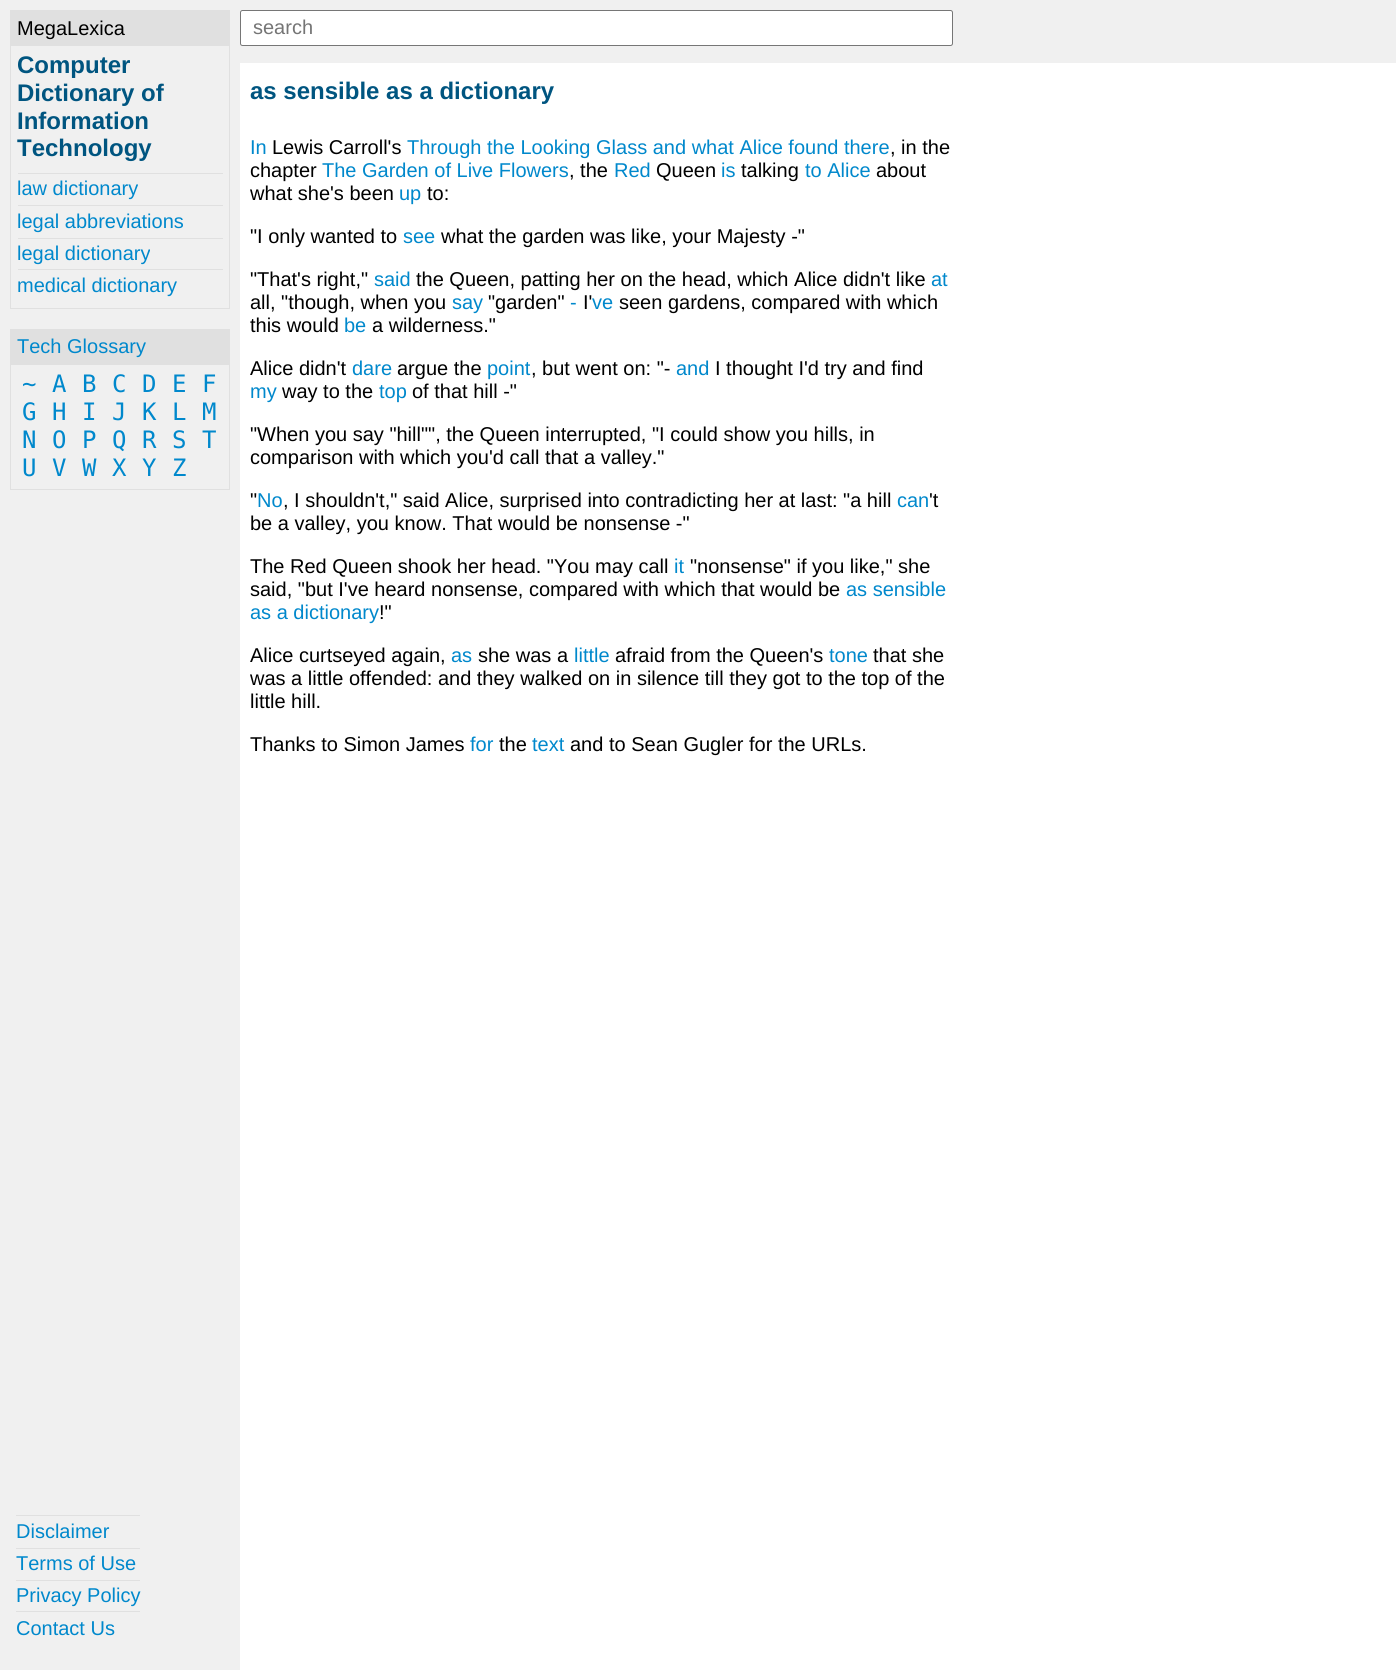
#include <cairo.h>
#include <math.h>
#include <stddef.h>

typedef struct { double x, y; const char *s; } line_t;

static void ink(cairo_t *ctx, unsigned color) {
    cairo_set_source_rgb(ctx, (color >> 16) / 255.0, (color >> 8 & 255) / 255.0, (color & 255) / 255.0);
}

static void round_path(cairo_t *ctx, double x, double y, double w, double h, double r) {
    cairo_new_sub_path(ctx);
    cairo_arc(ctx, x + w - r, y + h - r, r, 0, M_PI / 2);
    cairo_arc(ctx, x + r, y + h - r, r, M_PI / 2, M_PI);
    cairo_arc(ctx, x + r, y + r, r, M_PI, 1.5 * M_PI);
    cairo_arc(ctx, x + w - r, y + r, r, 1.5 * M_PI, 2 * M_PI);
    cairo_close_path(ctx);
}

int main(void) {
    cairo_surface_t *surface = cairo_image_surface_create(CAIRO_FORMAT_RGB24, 1396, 1670);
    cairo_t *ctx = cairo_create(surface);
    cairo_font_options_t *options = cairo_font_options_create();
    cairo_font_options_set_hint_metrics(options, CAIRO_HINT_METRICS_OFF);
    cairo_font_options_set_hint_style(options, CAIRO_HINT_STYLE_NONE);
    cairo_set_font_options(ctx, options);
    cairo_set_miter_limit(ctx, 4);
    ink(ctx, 0xFFFFFF);
    cairo_paint(ctx);
    ink(ctx, 0xF0F0F0);
    cairo_rectangle(ctx, 0, 0, 240, 1670);
    cairo_fill(ctx);
    cairo_rectangle(ctx, 10.5, 10.5, 219, 298);
    ink(ctx, 0xE0E0E0);
    cairo_set_line_width(ctx, 1);
    cairo_stroke(ctx);
    cairo_rectangle(ctx, 11, 11, 218, 35);
    cairo_fill(ctx);
    cairo_select_font_face(ctx, "Liberation Sans", CAIRO_FONT_SLANT_NORMAL, CAIRO_FONT_WEIGHT_NORMAL);
    cairo_set_font_size(ctx, 20);
    ink(ctx, 0x000000);
    cairo_move_to(ctx, 17, 35);
    cairo_show_text(ctx, "MegaLexica");
    cairo_select_font_face(ctx, "Liberation Sans", CAIRO_FONT_SLANT_NORMAL, CAIRO_FONT_WEIGHT_BOLD);
    cairo_set_font_size(ctx, 24);
    ink(ctx, 0x005580);
    {
        static const line_t items[] = {
            {17, 73, "Computer"},
            {17, 101, "Dictionary of"},
            {17, 129, "Information"},
            {17, 156, "Technology"},
        };
        for (size_t i = 0; i < sizeof items / sizeof *items; i++) {
            cairo_move_to(ctx, items[i].x, items[i].y);
            cairo_show_text(ctx, items[i].s);
        }
    }
    ink(ctx, 0xE0E0E0);
    cairo_rectangle(ctx, 18, 173, 205, 1);
    cairo_fill(ctx);
    cairo_select_font_face(ctx, "Liberation Sans", CAIRO_FONT_SLANT_NORMAL, CAIRO_FONT_WEIGHT_NORMAL);
    cairo_set_font_size(ctx, 20);
    ink(ctx, 0x0088CC);
    cairo_move_to(ctx, 17, 195);
    cairo_show_text(ctx, "law dictionary");
    ink(ctx, 0xE0E0E0);
    cairo_rectangle(ctx, 18, 205, 205, 1);
    cairo_fill(ctx);
    ink(ctx, 0x0088CC);
    cairo_move_to(ctx, 17, 228);
    cairo_show_text(ctx, "legal abbreviations");
    ink(ctx, 0xE0E0E0);
    cairo_rectangle(ctx, 18, 238, 205, 1);
    cairo_fill(ctx);
    ink(ctx, 0x0088CC);
    cairo_move_to(ctx, 17, 260);
    cairo_show_text(ctx, "legal dictionary");
    ink(ctx, 0xE0E0E0);
    cairo_rectangle(ctx, 18, 269, 205, 1);
    cairo_fill(ctx);
    ink(ctx, 0x0088CC);
    cairo_move_to(ctx, 17, 292);
    cairo_show_text(ctx, "medical dictionary");
    cairo_rectangle(ctx, 10.5, 329.5, 219, 160);
    ink(ctx, 0xE0E0E0);
    cairo_stroke(ctx);
    cairo_rectangle(ctx, 11, 330, 218, 35);
    cairo_fill(ctx);
    ink(ctx, 0x0088CC);
    cairo_move_to(ctx, 17, 353);
    cairo_show_text(ctx, "Tech Glossary");
    cairo_select_font_face(ctx, "DejaVu Sans Mono", CAIRO_FONT_SLANT_NORMAL, CAIRO_FONT_WEIGHT_NORMAL);
    cairo_set_font_size(ctx, 24);
    {
        static const line_t items[] = {
            {22, 392, "~"},
            {52, 392, "A"},
            {82, 392, "B"},
            {112, 392, "C"},
            {142, 392, "D"},
            {172, 392, "E"},
            {202, 392, "F"},
            {22, 420, "G"},
            {52, 420, "H"},
            {82, 420, "I"},
            {112, 420, "J"},
            {142, 420, "K"},
            {172, 420, "L"},
            {202, 420, "M"},
            {22, 448, "N"},
            {52, 448, "O"},
            {82, 448, "P"},
            {112, 448, "Q"},
            {142, 448, "R"},
            {172, 448, "S"},
            {202, 448, "T"},
            {22, 476, "U"},
            {52, 476, "V"},
            {82, 476, "W"},
            {112, 476, "X"},
            {142, 476, "Y"},
            {172, 476, "Z"},
        };
        for (size_t i = 0; i < sizeof items / sizeof *items; i++) {
            cairo_move_to(ctx, items[i].x, items[i].y);
            cairo_show_text(ctx, items[i].s);
        }
    }
    ink(ctx, 0xE0E0E0);
    cairo_rectangle(ctx, 16, 1515, 124, 1);
    cairo_fill(ctx);
    cairo_select_font_face(ctx, "Liberation Sans", CAIRO_FONT_SLANT_NORMAL, CAIRO_FONT_WEIGHT_NORMAL);
    cairo_set_font_size(ctx, 20);
    ink(ctx, 0x0088CC);
    cairo_move_to(ctx, 16, 1538);
    cairo_show_text(ctx, "Disclaimer");
    ink(ctx, 0xE0E0E0);
    cairo_rectangle(ctx, 16, 1548, 124, 1);
    cairo_fill(ctx);
    ink(ctx, 0x0088CC);
    cairo_move_to(ctx, 16, 1570);
    cairo_show_text(ctx, "Terms of Use");
    ink(ctx, 0xE0E0E0);
    cairo_rectangle(ctx, 16, 1580, 124, 1);
    cairo_fill(ctx);
    ink(ctx, 0x0088CC);
    cairo_move_to(ctx, 16, 1602);
    cairo_show_text(ctx, "Privacy Policy");
    ink(ctx, 0xE0E0E0);
    cairo_rectangle(ctx, 16, 1611, 124, 1);
    cairo_fill(ctx);
    ink(ctx, 0x0088CC);
    cairo_move_to(ctx, 16, 1635);
    cairo_show_text(ctx, "Contact Us");
    ink(ctx, 0xF0F0F0);
    cairo_rectangle(ctx, 240, 0, 1156, 63);
    cairo_fill(ctx);
    ink(ctx, 0xFFFFFF);
    round_path(ctx, 240.5, 10.5, 712, 35, 2);
    cairo_fill_preserve(ctx);
    ink(ctx, 0x767676);
    cairo_stroke(ctx);
    ink(ctx, 0x757575);
    cairo_move_to(ctx, 253, 34);
    cairo_show_text(ctx, "search");
    cairo_select_font_face(ctx, "Liberation Sans", CAIRO_FONT_SLANT_NORMAL, CAIRO_FONT_WEIGHT_BOLD);
    cairo_set_font_size(ctx, 24);
    ink(ctx, 0x005580);
    cairo_move_to(ctx, 250, 99);
    cairo_show_text(ctx, "as sensible as a dictionary");
    cairo_select_font_face(ctx, "Liberation Sans", CAIRO_FONT_SLANT_NORMAL, CAIRO_FONT_WEIGHT_NORMAL);
    cairo_set_font_size(ctx, 20);
    ink(ctx, 0x0088CC);
    cairo_move_to(ctx, 250, 154);
    cairo_show_text(ctx, "In");
    ink(ctx, 0x000000);
    cairo_move_to(ctx, 272, 154);
    cairo_show_text(ctx, "Lewis Carroll's");
    ink(ctx, 0x0088CC);
    cairo_move_to(ctx, 407, 154);
    cairo_show_text(ctx, "Through the Looking Glass and what Alice found there");
    ink(ctx, 0x000000);
    cairo_move_to(ctx, 890, 154);
    cairo_show_text(ctx, ", in the");
    cairo_move_to(ctx, 250, 177);
    cairo_show_text(ctx, "chapter");
    ink(ctx, 0x0088CC);
    cairo_move_to(ctx, 322, 177);
    cairo_show_text(ctx, "The Garden of Live Flowers");
    ink(ctx, 0x000000);
    cairo_move_to(ctx, 569, 177);
    cairo_show_text(ctx, ", the");
    ink(ctx, 0x0088CC);
    cairo_move_to(ctx, 614, 177);
    cairo_show_text(ctx, "Red");
    ink(ctx, 0x000000);
    cairo_move_to(ctx, 656, 177);
    cairo_show_text(ctx, "Queen");
    ink(ctx, 0x0088CC);
    cairo_move_to(ctx, 721, 177);
    cairo_show_text(ctx, "is");
    ink(ctx, 0x000000);
    cairo_move_to(ctx, 741, 177);
    cairo_show_text(ctx, "talking");
    ink(ctx, 0x0088CC);
    cairo_move_to(ctx, 805, 177);
    cairo_show_text(ctx, "to Alice");
    ink(ctx, 0x000000);
    cairo_move_to(ctx, 876, 177);
    cairo_show_text(ctx, "about");
    cairo_move_to(ctx, 250, 200);
    cairo_show_text(ctx, "what she's been");
    ink(ctx, 0x0088CC);
    cairo_move_to(ctx, 399, 200);
    cairo_show_text(ctx, "up");
    ink(ctx, 0x000000);
    cairo_move_to(ctx, 427, 200);
    cairo_show_text(ctx, "to:");
    cairo_move_to(ctx, 250, 243);
    cairo_show_text(ctx, "\"I only wanted to");
    ink(ctx, 0x0088CC);
    cairo_move_to(ctx, 403, 243);
    cairo_show_text(ctx, "see");
    ink(ctx, 0x000000);
    cairo_move_to(ctx, 441, 243);
    cairo_show_text(ctx, "what the garden was like, your Majesty -\"");
    cairo_move_to(ctx, 250, 286);
    cairo_show_text(ctx, "\"That's right,\"");
    ink(ctx, 0x0088CC);
    cairo_move_to(ctx, 374, 286);
    cairo_show_text(ctx, "said");
    ink(ctx, 0x000000);
    cairo_move_to(ctx, 416, 286);
    cairo_show_text(ctx, "the Queen, patting her on the head, which Alice didn't like");
    ink(ctx, 0x0088CC);
    cairo_move_to(ctx, 931, 286);
    cairo_show_text(ctx, "at");
    ink(ctx, 0x000000);
    cairo_move_to(ctx, 250, 309);
    cairo_show_text(ctx, "all, \"though, when you");
    ink(ctx, 0x0088CC);
    cairo_move_to(ctx, 452, 309);
    cairo_show_text(ctx, "say");
    ink(ctx, 0x000000);
    cairo_move_to(ctx, 488, 309);
    cairo_show_text(ctx, "\"garden\"");
    ink(ctx, 0x0088CC);
    cairo_move_to(ctx, 570, 309);
    cairo_show_text(ctx, "-");
    ink(ctx, 0x000000);
    cairo_move_to(ctx, 583, 309);
    cairo_show_text(ctx, "I'");
    ink(ctx, 0x0088CC);
    cairo_move_to(ctx, 592, 309);
    cairo_show_text(ctx, "ve");
    ink(ctx, 0x000000);
    cairo_move_to(ctx, 619, 309);
    cairo_show_text(ctx, "seen gardens, compared with which");
    cairo_move_to(ctx, 250, 332);
    cairo_show_text(ctx, "this would");
    ink(ctx, 0x0088CC);
    cairo_move_to(ctx, 344, 332);
    cairo_show_text(ctx, "be");
    ink(ctx, 0x000000);
    cairo_move_to(ctx, 372, 332);
    cairo_show_text(ctx, "a wilderness.\"");
    cairo_move_to(ctx, 250, 375);
    cairo_show_text(ctx, "Alice didn't");
    ink(ctx, 0x0088CC);
    cairo_move_to(ctx, 352, 375);
    cairo_show_text(ctx, "dare");
    ink(ctx, 0x000000);
    cairo_move_to(ctx, 397, 375);
    cairo_show_text(ctx, "argue the");
    ink(ctx, 0x0088CC);
    cairo_move_to(ctx, 487, 375);
    cairo_show_text(ctx, "point");
    ink(ctx, 0x000000);
    cairo_move_to(ctx, 531, 375);
    cairo_show_text(ctx, ", but went on: \"-");
    ink(ctx, 0x0088CC);
    cairo_move_to(ctx, 676, 375);
    cairo_show_text(ctx, "and");
    ink(ctx, 0x000000);
    cairo_move_to(ctx, 715, 375);
    cairo_show_text(ctx, "I thought I'd try and find");
    ink(ctx, 0x0088CC);
    cairo_move_to(ctx, 250, 398);
    cairo_show_text(ctx, "my");
    ink(ctx, 0x000000);
    cairo_move_to(ctx, 282, 398);
    cairo_show_text(ctx, "way to the");
    ink(ctx, 0x0088CC);
    cairo_move_to(ctx, 379, 398);
    cairo_show_text(ctx, "top");
    ink(ctx, 0x000000);
    {
        static const line_t items[] = {
            {412, 398, "of that hill -\""},
            {250, 441, "\"When you say \"hill\"\", the Queen interrupted, \"I could show you hills, in"},
            {250, 464, "comparison with which you'd call that a valley.\""},
            {250, 507, "\""},
        };
        for (size_t i = 0; i < sizeof items / sizeof *items; i++) {
            cairo_move_to(ctx, items[i].x, items[i].y);
            cairo_show_text(ctx, items[i].s);
        }
    }
    ink(ctx, 0x0088CC);
    cairo_move_to(ctx, 257, 507);
    cairo_show_text(ctx, "No");
    ink(ctx, 0x000000);
    cairo_move_to(ctx, 283, 507);
    cairo_show_text(ctx, ", I shouldn't,\" said Alice, surprised into contradicting her at last: \"a hill");
    ink(ctx, 0x0088CC);
    cairo_move_to(ctx, 897, 507);
    cairo_show_text(ctx, "can");
    ink(ctx, 0x000000);
    {
        static const line_t items[] = {
            {929, 507, "'t"},
            {250, 530, "be a valley, you know. That would be nonsense -\""},
            {250, 573, "The Red Queen shook her head. \"You may call"},
        };
        for (size_t i = 0; i < sizeof items / sizeof *items; i++) {
            cairo_move_to(ctx, items[i].x, items[i].y);
            cairo_show_text(ctx, items[i].s);
        }
    }
    ink(ctx, 0x0088CC);
    cairo_move_to(ctx, 674, 573);
    cairo_show_text(ctx, "it");
    ink(ctx, 0x000000);
    cairo_move_to(ctx, 690, 573);
    cairo_show_text(ctx, "\"nonsense\" if you like,\" she");
    cairo_move_to(ctx, 250, 596);
    cairo_show_text(ctx, "said, \"but I've heard nonsense, compared with which that would be");
    ink(ctx, 0x0088CC);
    cairo_move_to(ctx, 846, 596);
    cairo_show_text(ctx, "as sensible");
    cairo_move_to(ctx, 250, 619);
    cairo_show_text(ctx, "as a dictionary");
    ink(ctx, 0x000000);
    cairo_move_to(ctx, 379, 619);
    cairo_show_text(ctx, "!\"");
    cairo_move_to(ctx, 250, 662);
    cairo_show_text(ctx, "Alice curtseyed again,");
    ink(ctx, 0x0088CC);
    cairo_move_to(ctx, 451, 662);
    cairo_show_text(ctx, "as");
    ink(ctx, 0x000000);
    cairo_move_to(ctx, 478, 662);
    cairo_show_text(ctx, "she was a");
    ink(ctx, 0x0088CC);
    cairo_move_to(ctx, 574, 662);
    cairo_show_text(ctx, "little");
    ink(ctx, 0x000000);
    cairo_move_to(ctx, 615, 662);
    cairo_show_text(ctx, "afraid from the Queen's");
    ink(ctx, 0x0088CC);
    cairo_move_to(ctx, 829, 662);
    cairo_show_text(ctx, "tone");
    ink(ctx, 0x000000);
    {
        static const line_t items[] = {
            {873, 662, "that she"},
            {250, 685, "was a little offended: and they walked on in silence till they got to the top of the"},
            {250, 708, "little hill."},
            {250, 751, "Thanks to Simon James"},
        };
        for (size_t i = 0; i < sizeof items / sizeof *items; i++) {
            cairo_move_to(ctx, items[i].x, items[i].y);
            cairo_show_text(ctx, items[i].s);
        }
    }
    ink(ctx, 0x0088CC);
    cairo_move_to(ctx, 470, 751);
    cairo_show_text(ctx, "for");
    ink(ctx, 0x000000);
    cairo_move_to(ctx, 499, 751);
    cairo_show_text(ctx, "the");
    ink(ctx, 0x0088CC);
    cairo_move_to(ctx, 532, 751);
    cairo_show_text(ctx, "text");
    ink(ctx, 0x000000);
    cairo_move_to(ctx, 570, 751);
    cairo_show_text(ctx, "and to Sean Gugler for the URLs.");
    cairo_surface_write_to_png(surface, "image.png");
    cairo_font_options_destroy(options);
    cairo_destroy(ctx);
    cairo_surface_destroy(surface);
    return 0;
}
